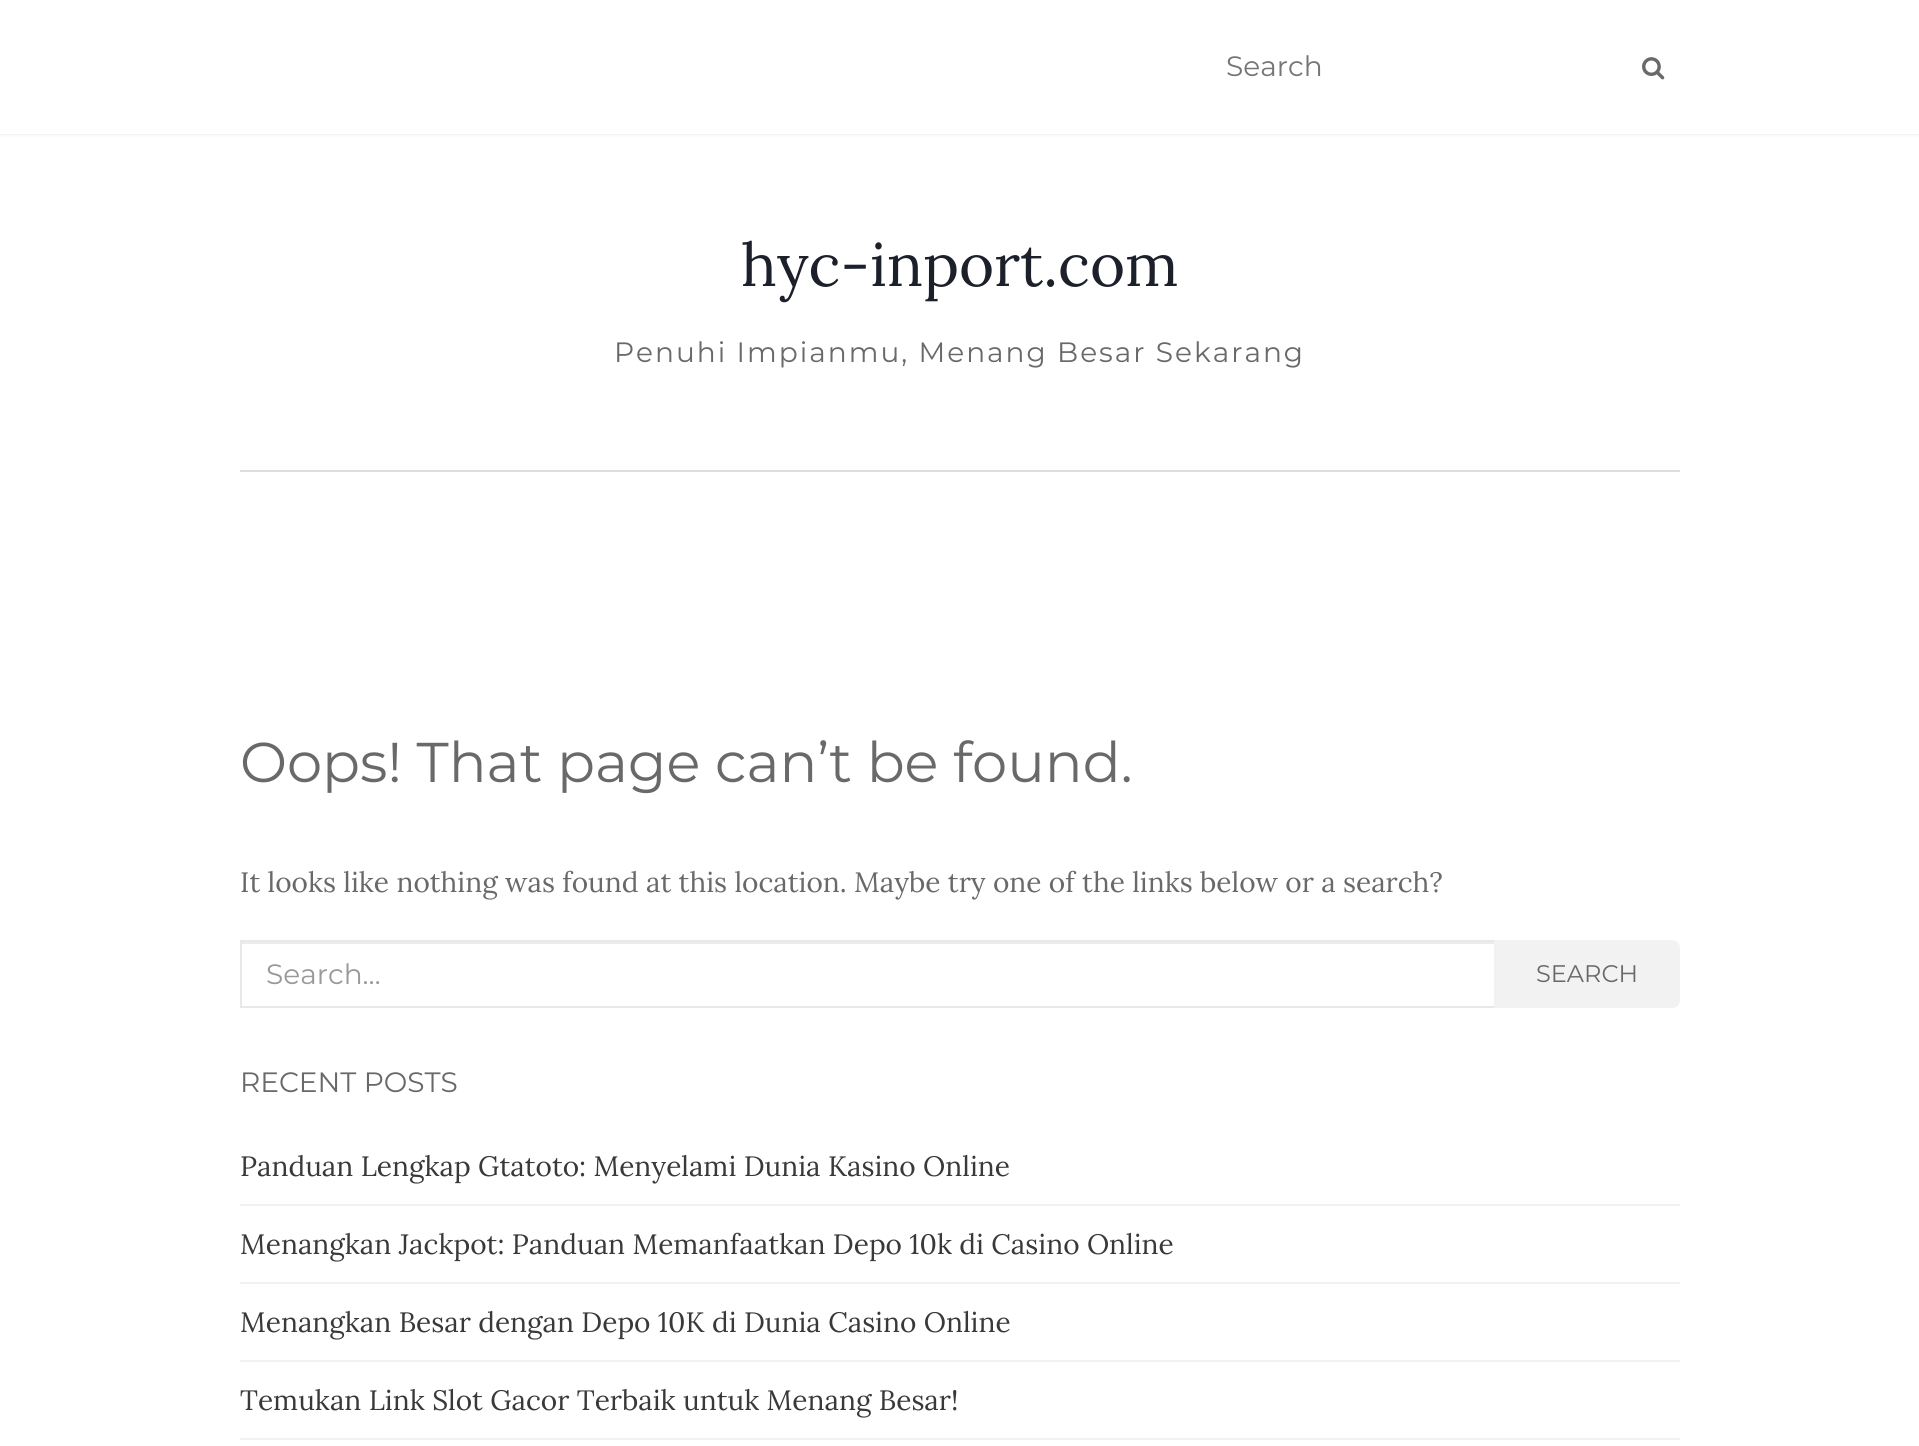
#include <cairo.h>
#include <math.h>
#include <stddef.h>


static void ink(cairo_t *ctx, unsigned color) {
    cairo_set_source_rgb(ctx, (color >> 16) / 255.0, (color >> 8 & 255) / 255.0, (color & 255) / 255.0);
}

static void write_spaced(cairo_t *ctx, double x, double y, const char *s, double letter, double word) {
    cairo_move_to(ctx, x, y);
    while (*s) {
        char ch[5] = {0};
        int n = 0;
        do ch[n++] = *s++; while ((*s & 0xC0) == 0x80);
        cairo_show_text(ctx, ch);
        cairo_rel_move_to(ctx, letter + word * (*ch == ' '), 0);
    }
}

static void round_path(cairo_t *ctx, double x, double y, double w, double h, double r) {
    cairo_new_sub_path(ctx);
    cairo_arc(ctx, x + w - r, y + h - r, r, 0, M_PI / 2);
    cairo_arc(ctx, x + r, y + h - r, r, M_PI / 2, M_PI);
    cairo_arc(ctx, x + r, y + r, r, M_PI, 1.5 * M_PI);
    cairo_arc(ctx, x + w - r, y + r, r, 1.5 * M_PI, 2 * M_PI);
    cairo_close_path(ctx);
}

static void blur_box(cairo_t *ctx, double x, double y, double w, double h, double r, double blur, double alpha) {
    cairo_push_group_with_content(ctx, CAIRO_CONTENT_ALPHA);
    cairo_set_operator(ctx, CAIRO_OPERATOR_SOURCE);
    for (int i = 15; i >= -15 && fmin(w, h) + blur * i / 3 > 0; i -= 2) {
        double e = blur * i / 6;
        cairo_set_source_rgba(ctx, 0, 0, 0, alpha * erfc((i - 1) / 8.5) / 2);
        round_path(ctx, x - e, y - e, w + 2 * e, h + 2 * e, fmax(0, fmin(r + e + blur * .6, fmin(w, h) / 2 + e)));
        cairo_fill(ctx);
    }
    cairo_pattern_t *soft = cairo_pop_group(ctx);
    cairo_mask(ctx, soft);
    cairo_pattern_destroy(soft);
}

static void paste(cairo_t *ctx, const char *path, double x, double y, double w, double h) {
    cairo_surface_t *image = cairo_image_surface_create_from_png(path);
    cairo_save(ctx);
    cairo_set_source_surface(ctx, image, x, y);
    cairo_rectangle(ctx, x, y, w, h);
    cairo_fill(ctx);
    cairo_restore(ctx);
    cairo_surface_destroy(image);
}

int main(void) {
    cairo_surface_t *surface = cairo_image_surface_create(CAIRO_FORMAT_RGB24, 1919, 1446);
    cairo_t *ctx = cairo_create(surface);
    cairo_font_options_t *options = cairo_font_options_create();
    cairo_font_options_set_hint_metrics(options, CAIRO_HINT_METRICS_OFF);
    cairo_font_options_set_hint_style(options, CAIRO_HINT_STYLE_NONE);
    cairo_set_font_options(ctx, options);
    cairo_set_miter_limit(ctx, 4);
    ink(ctx, 0xFFFFFF);
    cairo_paint(ctx);
    cairo_save(ctx);
    cairo_rectangle(ctx, 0, 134, 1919, 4);
    cairo_clip(ctx);
    ink(ctx, 0xE3E3E3);
    blur_box(ctx, 0, 0, 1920, 134, 0, 2, 1);
    cairo_restore(ctx);
    cairo_select_font_face(ctx, "Montserrat", CAIRO_FONT_SLANT_NORMAL, CAIRO_FONT_WEIGHT_NORMAL);
    cairo_set_font_size(ctx, 28);
    ink(ctx, 0x757575);
    cairo_move_to(ctx, 1226, 76);
    cairo_show_text(ctx, "Search");
    paste(ctx, "media/1.png", 1642, 57, 23, 23);
    cairo_select_font_face(ctx, "Lora", CAIRO_FONT_SLANT_NORMAL, CAIRO_FONT_WEIGHT_NORMAL);
    cairo_set_font_size(ctx, 60);
    ink(ctx, 0x1C202A);
    cairo_move_to(ctx, 741, 286);
    cairo_show_text(ctx, "hyc-inport.com");
    cairo_select_font_face(ctx, "Montserrat", CAIRO_FONT_SLANT_NORMAL, CAIRO_FONT_WEIGHT_NORMAL);
    cairo_set_font_size(ctx, 28);
    ink(ctx, 0x696969);
    write_spaced(ctx, 614, 362, "Penuhi Impianmu, Menang Besar Sekarang", 2, 0);
    ink(ctx, 0xDDDDDD);
    cairo_rectangle(ctx, 240, 470, 1440, 2);
    cairo_fill(ctx);
    cairo_set_font_size(ctx, 56);
    ink(ctx, 0x696969);
    cairo_move_to(ctx, 240, 782);
    cairo_show_text(ctx, "Oops! That page can’t be found.");
    cairo_select_font_face(ctx, "Lora", CAIRO_FONT_SLANT_NORMAL, CAIRO_FONT_WEIGHT_NORMAL);
    cairo_set_font_size(ctx, 28);
    cairo_move_to(ctx, 240, 892);
    cairo_show_text(ctx, "It looks like nothing was found at this location. Maybe try one of the links below or a search?");
    ink(ctx, 0xECECEC);
    cairo_rectangle(ctx, 242, 942, 1252, 2);
    cairo_fill(ctx);
    cairo_rectangle(ctx, 241, 941, 1254, 66);
    ink(ctx, 0xE8E8E8);
    cairo_stroke(ctx);
    cairo_select_font_face(ctx, "Montserrat", CAIRO_FONT_SLANT_NORMAL, CAIRO_FONT_WEIGHT_NORMAL);
    ink(ctx, 0x999999);
    cairo_move_to(ctx, 266, 984);
    cairo_show_text(ctx, "Search…");
    ink(ctx, 0xF2F2F2);
    cairo_new_path(ctx);
    cairo_move_to(ctx, 1494, 940);
    cairo_line_to(ctx, 1672, 940);
    cairo_curve_to(ctx, 1676.5, 940, 1680, 943.5, 1680, 948);
    cairo_line_to(ctx, 1680, 1000);
    cairo_curve_to(ctx, 1680, 1004.5, 1676.5, 1008, 1672, 1008);
    cairo_line_to(ctx, 1494, 1008);
    cairo_close_path(ctx);
    cairo_fill(ctx);
    cairo_set_font_size(ctx, 24);
    ink(ctx, 0x696969);
    cairo_move_to(ctx, 1536, 982);
    cairo_show_text(ctx, "SEARCH");
    cairo_set_font_size(ctx, 28);
    cairo_move_to(ctx, 240, 1092);
    cairo_show_text(ctx, "RECENT POSTS");
    ink(ctx, 0xF2F2F2);
    cairo_rectangle(ctx, 240, 1204, 1440, 2);
    cairo_fill(ctx);
    cairo_select_font_face(ctx, "Lora", CAIRO_FONT_SLANT_NORMAL, CAIRO_FONT_WEIGHT_NORMAL);
    ink(ctx, 0x393939);
    cairo_move_to(ctx, 240, 1176);
    cairo_show_text(ctx, "Panduan Lengkap Gtatoto: Menyelami Dunia Kasino Online");
    ink(ctx, 0xF2F2F2);
    cairo_rectangle(ctx, 240, 1282, 1440, 2);
    cairo_fill(ctx);
    ink(ctx, 0x393939);
    cairo_move_to(ctx, 240, 1254);
    cairo_show_text(ctx, "Menangkan Jackpot: Panduan Memanfaatkan Depo 10k di Casino Online");
    ink(ctx, 0xF2F2F2);
    cairo_rectangle(ctx, 240, 1360, 1440, 2);
    cairo_fill(ctx);
    ink(ctx, 0x393939);
    cairo_move_to(ctx, 240, 1332);
    cairo_show_text(ctx, "Menangkan Besar dengan Depo 10K di Dunia Casino Online");
    ink(ctx, 0xF2F2F2);
    cairo_rectangle(ctx, 240, 1438, 1440, 2);
    cairo_fill(ctx);
    ink(ctx, 0x393939);
    cairo_move_to(ctx, 240, 1410);
    cairo_show_text(ctx, "Temukan Link Slot Gacor Terbaik untuk Menang Besar!");
    cairo_surface_write_to_png(surface, "image.png");
    cairo_font_options_destroy(options);
    cairo_destroy(ctx);
    cairo_surface_destroy(surface);
    return 0;
}
